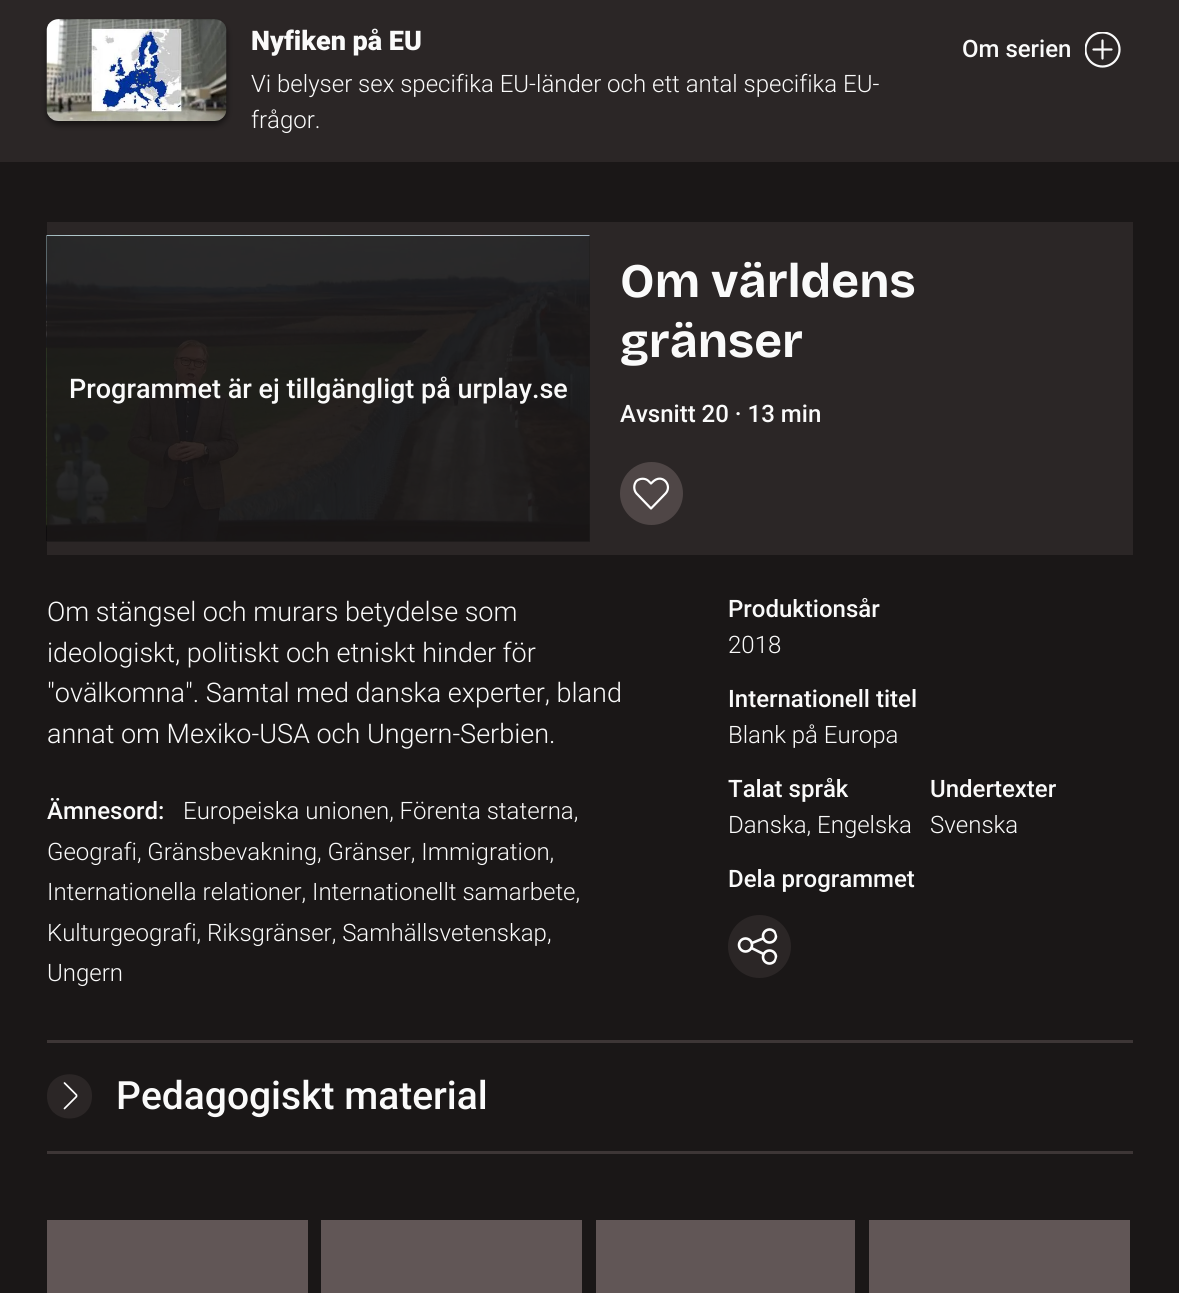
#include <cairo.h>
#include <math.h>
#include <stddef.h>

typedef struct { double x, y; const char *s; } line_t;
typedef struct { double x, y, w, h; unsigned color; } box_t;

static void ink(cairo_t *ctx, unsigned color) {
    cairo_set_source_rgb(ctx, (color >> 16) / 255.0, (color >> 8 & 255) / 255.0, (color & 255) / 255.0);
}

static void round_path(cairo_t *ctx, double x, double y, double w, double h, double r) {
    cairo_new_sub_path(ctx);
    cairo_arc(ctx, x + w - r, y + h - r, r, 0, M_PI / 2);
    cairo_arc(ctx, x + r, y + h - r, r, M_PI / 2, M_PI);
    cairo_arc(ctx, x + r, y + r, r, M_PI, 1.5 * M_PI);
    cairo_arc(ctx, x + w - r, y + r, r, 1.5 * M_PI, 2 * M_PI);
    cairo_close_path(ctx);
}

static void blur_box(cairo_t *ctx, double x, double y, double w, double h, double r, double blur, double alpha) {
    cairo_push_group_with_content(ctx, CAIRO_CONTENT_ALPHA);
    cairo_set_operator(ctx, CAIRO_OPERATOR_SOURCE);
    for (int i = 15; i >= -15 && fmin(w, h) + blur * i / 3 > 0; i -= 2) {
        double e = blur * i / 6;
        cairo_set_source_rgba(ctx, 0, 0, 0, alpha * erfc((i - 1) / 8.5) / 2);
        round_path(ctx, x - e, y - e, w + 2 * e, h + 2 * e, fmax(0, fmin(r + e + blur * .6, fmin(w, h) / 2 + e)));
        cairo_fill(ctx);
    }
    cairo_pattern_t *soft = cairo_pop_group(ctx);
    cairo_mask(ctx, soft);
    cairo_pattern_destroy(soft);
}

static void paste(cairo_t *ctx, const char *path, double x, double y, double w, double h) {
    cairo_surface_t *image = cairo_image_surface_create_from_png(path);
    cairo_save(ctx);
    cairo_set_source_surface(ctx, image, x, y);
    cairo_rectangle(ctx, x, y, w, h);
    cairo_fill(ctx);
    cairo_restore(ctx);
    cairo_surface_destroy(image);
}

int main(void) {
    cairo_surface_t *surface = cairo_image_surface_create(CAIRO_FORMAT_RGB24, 1179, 1293);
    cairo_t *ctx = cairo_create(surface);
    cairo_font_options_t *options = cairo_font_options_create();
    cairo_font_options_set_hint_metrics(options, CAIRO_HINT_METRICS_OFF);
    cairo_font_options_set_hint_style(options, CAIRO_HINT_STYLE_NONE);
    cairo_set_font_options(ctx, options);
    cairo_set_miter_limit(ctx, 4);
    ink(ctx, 0x1A1717);
    cairo_paint(ctx);
    ink(ctx, 0x2B2626);
    cairo_rectangle(ctx, 0, 0, 1179, 162);
    cairo_fill(ctx);
    ink(ctx, 0x000000);
    blur_box(ctx, 47, 23, 180, 102, 12, 3, 0.5);
    paste(ctx, "media/1.png", 46, 19, 181, 102);
    cairo_select_font_face(ctx, "Roboto Black", CAIRO_FONT_SLANT_NORMAL, CAIRO_FONT_WEIGHT_NORMAL);
    cairo_set_font_size(ctx, 27);
    ink(ctx, 0xFAFAFA);
    cairo_move_to(ctx, 251, 50);
    cairo_show_text(ctx, "Nyfiken på EU");
    cairo_select_font_face(ctx, "Roboto Light", CAIRO_FONT_SLANT_NORMAL, CAIRO_FONT_WEIGHT_NORMAL);
    cairo_set_font_size(ctx, 24);
    cairo_move_to(ctx, 251, 92);
    cairo_show_text(ctx, "Vi belyser sex specifika EU-länder och ett antal specifika EU-");
    cairo_move_to(ctx, 251, 128);
    cairo_show_text(ctx, "frågor.");
    cairo_select_font_face(ctx, "Roboto Medium", CAIRO_FONT_SLANT_NORMAL, CAIRO_FONT_WEIGHT_NORMAL);
    cairo_move_to(ctx, 962, 57);
    cairo_show_text(ctx, "Om serien");
    cairo_new_path(ctx);
    cairo_move_to(ctx, 1093.5, 49.5);
    cairo_line_to(ctx, 1111.5, 49.5);
    cairo_move_to(ctx, 1102.5, 40.5);
    cairo_line_to(ctx, 1102.5, 58.5);
    cairo_set_line_width(ctx, 2.2);
    cairo_set_line_cap(ctx, CAIRO_LINE_CAP_ROUND);
    cairo_set_line_join(ctx, CAIRO_LINE_JOIN_ROUND);
    cairo_stroke(ctx);
    cairo_save(ctx);
    cairo_rectangle(ctx, 1085, 32, 36, 36);
    cairo_clip(ctx);
    cairo_arc(ctx, 1102.5, 49.5, 17, 0, 2 * M_PI);
    cairo_set_line_cap(ctx, CAIRO_LINE_CAP_BUTT);
    cairo_set_line_join(ctx, CAIRO_LINE_JOIN_MITER);
    cairo_stroke(ctx);
    cairo_restore(ctx);
    ink(ctx, 0x2B2626);
    cairo_rectangle(ctx, 47, 222, 1086, 333);
    cairo_fill(ctx);
    ink(ctx, 0x1F1C1C);
    cairo_rectangle(ctx, 47, 236, 543, 306);
    cairo_fill(ctx);
    paste(ctx, "media/2.png", 46, 235, 544, 306);
    cairo_set_font_size(ctx, 27);
    ink(ctx, 0xFAFAFA);
    cairo_move_to(ctx, 69, 398);
    cairo_show_text(ctx, "Programmet är ej tillgängligt på urplay.se");
    cairo_select_font_face(ctx, "Bricolage Grotesque ExtraBold", CAIRO_FONT_SLANT_NORMAL, CAIRO_FONT_WEIGHT_NORMAL);
    cairo_set_font_size(ctx, 48);
    cairo_move_to(ctx, 620, 297);
    cairo_show_text(ctx, "Om världens");
    cairo_move_to(ctx, 620, 357);
    cairo_show_text(ctx, "gränser");
    cairo_select_font_face(ctx, "Roboto Medium", CAIRO_FONT_SLANT_NORMAL, CAIRO_FONT_WEIGHT_NORMAL);
    cairo_set_font_size(ctx, 24);
    cairo_move_to(ctx, 620, 422);
    cairo_show_text(ctx, "Avsnitt 20 · 13 min");
    ink(ctx, 0x4F4646);
    cairo_new_path(ctx);
    cairo_arc(ctx, 651.5, 493.5, 31.5, 0, 2 * M_PI);
    cairo_fill(ctx);
    cairo_new_path(ctx);
    cairo_move_to(ctx, 651, 508.5);
    cairo_line_to(ctx, 636.5, 493.5);
    cairo_curve_to(ctx, 633.5, 490, 633.5, 484.5, 636.5, 481);
    cairo_curve_to(ctx, 640, 478, 645.5, 478, 648.5, 481);
    cairo_line_to(ctx, 651, 483.5);
    cairo_curve_to(ctx, 652.5, 482, 654, 480.5, 656, 479.5);
    cairo_curve_to(ctx, 664.5, 475.5, 672, 486.5, 665.5, 493.5);
    cairo_close_path(ctx);
    ink(ctx, 0xFFFFFF);
    cairo_stroke(ctx);
    ink(ctx, 0x3D3636);
    cairo_rectangle(ctx, 47, 1151, 1086, 3);
    cairo_fill(ctx);
    cairo_select_font_face(ctx, "Roboto Light", CAIRO_FONT_SLANT_NORMAL, CAIRO_FONT_WEIGHT_NORMAL);
    cairo_set_font_size(ctx, 27);
    ink(ctx, 0xFAFAFA);
    {
        static const line_t items[] = {
            {47, 621, "Om stängsel och murars betydelse som"},
            {47, 662, "ideologiskt, politiskt och etniskt hinder för"},
            {47, 702, "\"ovälkomna\". Samtal med danska experter, bland"},
            {47, 743, "annat om Mexiko-USA och Ungern-Serbien."},
        };
        for (size_t i = 0; i < sizeof items / sizeof *items; i++) {
            cairo_move_to(ctx, items[i].x, items[i].y);
            cairo_show_text(ctx, items[i].s);
        }
    }
    cairo_select_font_face(ctx, "Roboto Medium", CAIRO_FONT_SLANT_NORMAL, CAIRO_FONT_WEIGHT_NORMAL);
    cairo_set_font_size(ctx, 24);
    cairo_move_to(ctx, 47, 819);
    cairo_show_text(ctx, "Ämnesord:");
    cairo_select_font_face(ctx, "Roboto Light", CAIRO_FONT_SLANT_NORMAL, CAIRO_FONT_WEIGHT_NORMAL);
    {
        static const line_t items[] = {
            {183, 819, "Europeiska unionen, Förenta staterna,"},
            {47, 860, "Geografi, Gränsbevakning, Gränser, Immigration,"},
            {47, 900, "Internationella relationer, Internationellt samarbete,"},
            {47, 941, "Kulturgeografi, Riksgränser, Samhällsvetenskap,"},
            {47, 981, "Ungern"},
        };
        for (size_t i = 0; i < sizeof items / sizeof *items; i++) {
            cairo_move_to(ctx, items[i].x, items[i].y);
            cairo_show_text(ctx, items[i].s);
        }
    }
    cairo_select_font_face(ctx, "Roboto Medium", CAIRO_FONT_SLANT_NORMAL, CAIRO_FONT_WEIGHT_NORMAL);
    cairo_move_to(ctx, 728, 617);
    cairo_show_text(ctx, "Produktionsår");
    cairo_select_font_face(ctx, "Roboto Light", CAIRO_FONT_SLANT_NORMAL, CAIRO_FONT_WEIGHT_NORMAL);
    cairo_move_to(ctx, 728, 653);
    cairo_show_text(ctx, "2018");
    cairo_select_font_face(ctx, "Roboto Medium", CAIRO_FONT_SLANT_NORMAL, CAIRO_FONT_WEIGHT_NORMAL);
    cairo_move_to(ctx, 728, 707);
    cairo_show_text(ctx, "Internationell titel");
    cairo_select_font_face(ctx, "Roboto Light", CAIRO_FONT_SLANT_NORMAL, CAIRO_FONT_WEIGHT_NORMAL);
    cairo_move_to(ctx, 728, 743);
    cairo_show_text(ctx, "Blank på Europa");
    cairo_select_font_face(ctx, "Roboto Medium", CAIRO_FONT_SLANT_NORMAL, CAIRO_FONT_WEIGHT_NORMAL);
    cairo_move_to(ctx, 728, 797);
    cairo_show_text(ctx, "Talat språk");
    cairo_select_font_face(ctx, "Roboto Light", CAIRO_FONT_SLANT_NORMAL, CAIRO_FONT_WEIGHT_NORMAL);
    cairo_move_to(ctx, 728, 833);
    cairo_show_text(ctx, "Danska, Engelska");
    cairo_select_font_face(ctx, "Roboto Medium", CAIRO_FONT_SLANT_NORMAL, CAIRO_FONT_WEIGHT_NORMAL);
    cairo_move_to(ctx, 930, 797);
    cairo_show_text(ctx, "Undertexter");
    cairo_select_font_face(ctx, "Roboto Light", CAIRO_FONT_SLANT_NORMAL, CAIRO_FONT_WEIGHT_NORMAL);
    cairo_move_to(ctx, 930, 833);
    cairo_show_text(ctx, "Svenska");
    cairo_select_font_face(ctx, "Roboto Medium", CAIRO_FONT_SLANT_NORMAL, CAIRO_FONT_WEIGHT_NORMAL);
    cairo_move_to(ctx, 728, 887);
    cairo_show_text(ctx, "Dela programmet");
    ink(ctx, 0x2B2626);
    cairo_new_path(ctx);
    cairo_arc(ctx, 759.5, 946.5, 31.5, 0, 2 * M_PI);
    cairo_fill(ctx);
    cairo_arc(ctx, 745.5, 945, 6.5, 0, 2 * M_PI);
    ink(ctx, 0xFFFFFF);
    cairo_set_line_width(ctx, 2.6);
    cairo_set_line_cap(ctx, CAIRO_LINE_CAP_BUTT);
    cairo_set_line_join(ctx, CAIRO_LINE_JOIN_MITER);
    cairo_stroke(ctx);
    cairo_save(ctx);
    cairo_new_path(ctx);
    cairo_move_to(ctx, 757.5, 916.5);
    cairo_curve_to(ctx, 769, 916.5, 778.5, 930, 778.5, 946.5);
    cairo_curve_to(ctx, 778.5, 963, 769, 976.5, 757.5, 976.5);
    cairo_curve_to(ctx, 746, 976.5, 736.5, 963, 736.5, 946.5);
    cairo_curve_to(ctx, 736.5, 930, 746, 916.5, 757.5, 916.5);
    cairo_close_path(ctx);
    cairo_clip(ctx);
    cairo_arc(ctx, 769.5, 936, 6.5, 0, 2 * M_PI);
    cairo_stroke(ctx);
    cairo_arc(ctx, 769.5, 957, 6.5, 0, 2 * M_PI);
    cairo_stroke(ctx);
    cairo_restore(ctx);
    cairo_new_path(ctx);
    cairo_move_to(ctx, 752, 943);
    cairo_line_to(ctx, 763, 938.5);
    cairo_move_to(ctx, 751.5, 948);
    cairo_line_to(ctx, 763.5, 954);
    ink(ctx, 0xFAFAFA);
    cairo_set_line_cap(ctx, CAIRO_LINE_CAP_ROUND);
    cairo_set_line_join(ctx, CAIRO_LINE_JOIN_ROUND);
    cairo_stroke(ctx);
    ink(ctx, 0x3D3636);
    cairo_rectangle(ctx, 47, 1040, 1086, 3);
    cairo_fill(ctx);
    ink(ctx, 0x2B2626);
    cairo_new_path(ctx);
    cairo_move_to(ctx, 92, 1096);
    cairo_curve_to(ctx, 92, 1126, 47, 1126, 47, 1096);
    cairo_curve_to(ctx, 47, 1067, 92, 1067, 92, 1096);
    cairo_close_path(ctx);
    cairo_fill(ctx);
    cairo_new_path(ctx);
    cairo_move_to(ctx, 64.5, 1108.5);
    cairo_line_to(ctx, 76.5, 1096.5);
    cairo_curve_to(ctx, 76.5, 1096, 76.5, 1095.5, 76.5, 1095);
    cairo_line_to(ctx, 64.5, 1083);
    ink(ctx, 0xFFFFFF);
    cairo_set_line_width(ctx, 1.7);
    cairo_stroke(ctx);
    cairo_set_font_size(ctx, 39);
    ink(ctx, 0xFAFAFA);
    cairo_move_to(ctx, 116, 1109);
    cairo_show_text(ctx, "Pedagogiskt material");
    {
        static const box_t items[] = {
            {47, 1220, 261, 73, 0x615656},
            {321, 1220, 261, 73, 0x615656},
            {596, 1220, 259, 73, 0x615656},
            {869, 1220, 261, 73, 0x615656},
        };
        for (size_t i = 0; i < sizeof items / sizeof *items; i++) {
            ink(ctx, items[i].color);
            cairo_rectangle(ctx, items[i].x, items[i].y, items[i].w, items[i].h);
            cairo_fill(ctx);
        }
    }
    cairo_surface_write_to_png(surface, "image.png");
    cairo_font_options_destroy(options);
    cairo_destroy(ctx);
    cairo_surface_destroy(surface);
    return 0;
}
